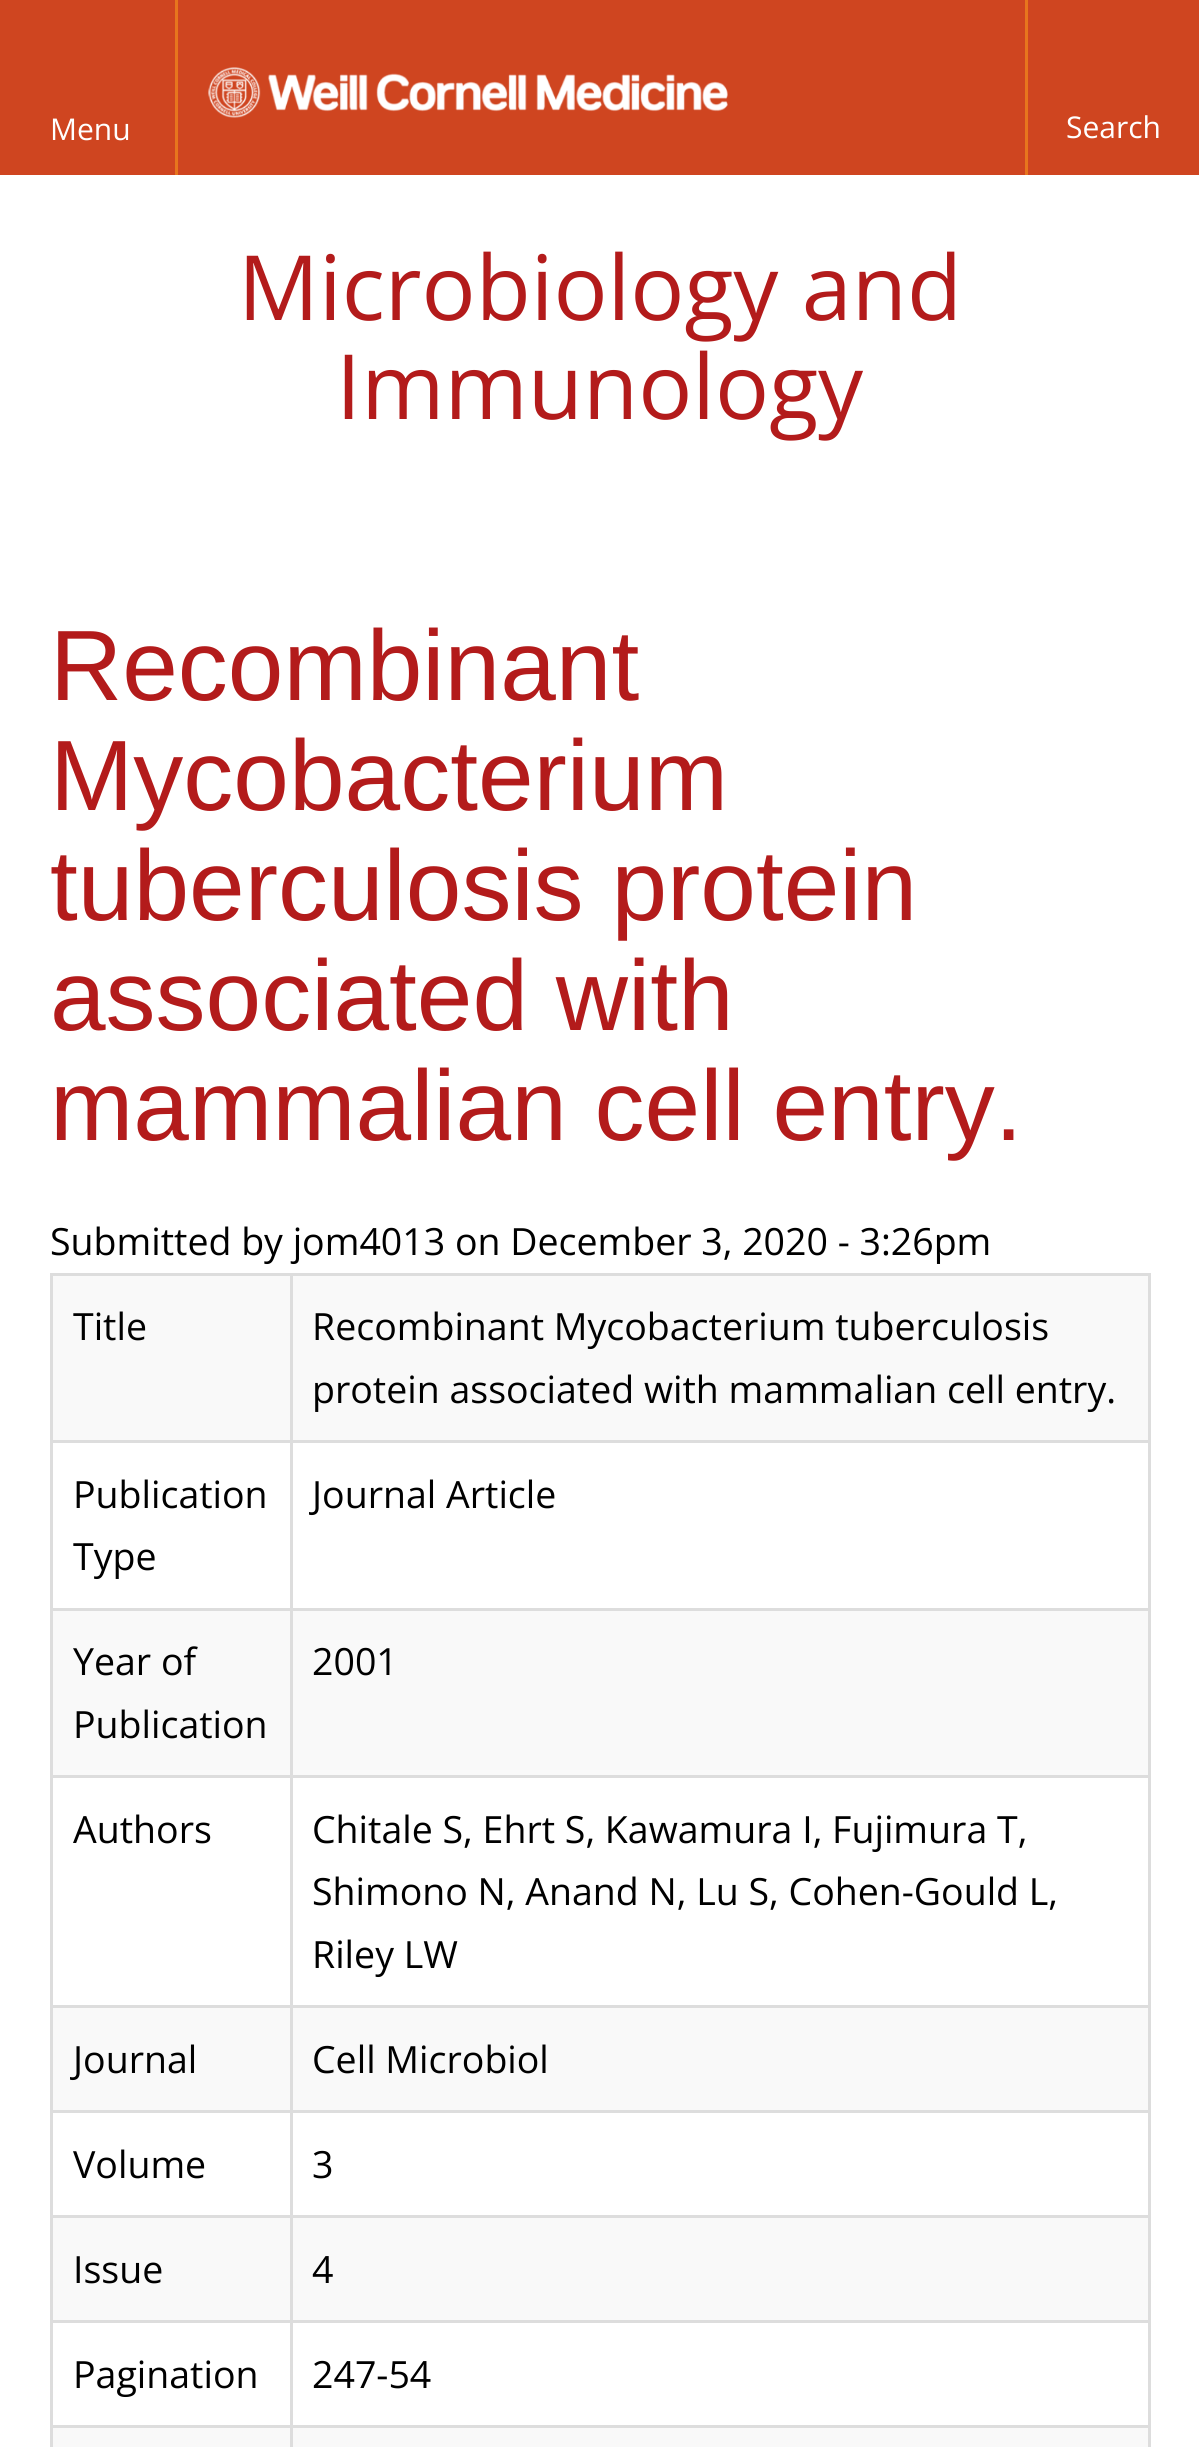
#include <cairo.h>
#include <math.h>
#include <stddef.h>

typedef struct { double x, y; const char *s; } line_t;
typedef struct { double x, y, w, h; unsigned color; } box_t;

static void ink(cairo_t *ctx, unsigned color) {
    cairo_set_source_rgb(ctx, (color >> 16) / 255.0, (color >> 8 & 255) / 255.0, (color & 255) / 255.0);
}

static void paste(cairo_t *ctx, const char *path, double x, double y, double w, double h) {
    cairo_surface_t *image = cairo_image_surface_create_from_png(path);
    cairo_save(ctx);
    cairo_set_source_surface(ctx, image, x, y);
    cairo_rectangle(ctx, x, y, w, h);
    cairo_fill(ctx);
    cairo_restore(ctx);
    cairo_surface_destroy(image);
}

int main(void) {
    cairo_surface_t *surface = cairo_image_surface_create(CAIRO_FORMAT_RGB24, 1199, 2447);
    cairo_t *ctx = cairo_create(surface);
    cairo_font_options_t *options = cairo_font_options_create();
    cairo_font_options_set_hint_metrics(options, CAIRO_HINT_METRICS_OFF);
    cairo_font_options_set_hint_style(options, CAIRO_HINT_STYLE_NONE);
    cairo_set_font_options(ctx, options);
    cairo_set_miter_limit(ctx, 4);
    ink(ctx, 0xFFFFFF);
    cairo_paint(ctx);
    ink(ctx, 0xCF4520);
    cairo_rectangle(ctx, 0, 0, 1199, 175);
    cairo_fill(ctx);
    paste(ctx, "media/1.png", 208, 67, 520, 51);
    ink(ctx, 0xE7751D);
    cairo_rectangle(ctx, 175, 0, 3, 175);
    cairo_fill(ctx);
    cairo_select_font_face(ctx, "Open Sans", CAIRO_FONT_SLANT_NORMAL, CAIRO_FONT_WEIGHT_NORMAL);
    cairo_set_font_size(ctx, 30);
    ink(ctx, 0xFFFFFF);
    cairo_move_to(ctx, 50, 140);
    cairo_show_text(ctx, "Menu");
    ink(ctx, 0xE7751D);
    cairo_rectangle(ctx, 1025, 0, 3, 175);
    cairo_fill(ctx);
    ink(ctx, 0xFFFFFF);
    cairo_move_to(ctx, 1066, 138);
    cairo_show_text(ctx, "Search");
    cairo_set_font_size(ctx, 90);
    ink(ctx, 0xB31B1B);
    cairo_move_to(ctx, 238, 320);
    cairo_show_text(ctx, "Microbiology and");
    cairo_move_to(ctx, 336, 419);
    cairo_show_text(ctx, "Immunology");
    cairo_select_font_face(ctx, "Liberation Sans", CAIRO_FONT_SLANT_NORMAL, CAIRO_FONT_WEIGHT_NORMAL);
    cairo_set_font_size(ctx, 100);
    {
        static const line_t items[] = {
            {50, 700, "Recombinant"},
            {50, 810, "Mycobacterium"},
            {50, 920, "tuberculosis protein"},
            {50, 1030, "associated with"},
            {50, 1140, "mammalian cell entry."},
        };
        for (size_t i = 0; i < sizeof items / sizeof *items; i++) {
            cairo_move_to(ctx, items[i].x, items[i].y);
            cairo_show_text(ctx, items[i].s);
        }
    }
    cairo_select_font_face(ctx, "Open Sans", CAIRO_FONT_SLANT_NORMAL, CAIRO_FONT_WEIGHT_NORMAL);
    cairo_set_font_size(ctx, 37.5);
    ink(ctx, 0x000000);
    cairo_move_to(ctx, 50, 1255);
    cairo_show_text(ctx, "Submitted by jom4013 on December 3, 2020 - 3:26pm");
    {
        static const box_t items[] = {
            {1148, 1273, 3, 1174, 0xDDDDDD},
            {50, 1273, 3, 1174, 0xDDDDDD},
            {53, 1276, 237, 164, 0xF9F9F9},
            {290, 1273, 860, 3, 0xDDDDDD},
            {290, 1440, 860, 3, 0xDDDDDD},
            {290, 1608, 860, 3, 0xDDDDDD},
            {290, 1775, 860, 3, 0xDDDDDD},
            {290, 2005, 860, 3, 0xDDDDDD},
            {290, 2110, 860, 3, 0xDDDDDD},
            {290, 2215, 860, 3, 0xDDDDDD},
            {290, 2320, 860, 3, 0xDDDDDD},
            {290, 2425, 860, 3, 0xDDDDDD},
            {290, 2425, 3, 22, 0xDDDDDD},
            {50, 2425, 243, 3, 0xDDDDDD},
            {290, 2320, 3, 108, 0xDDDDDD},
            {50, 2320, 243, 3, 0xDDDDDD},
            {290, 2215, 3, 108, 0xDDDDDD},
            {50, 2215, 243, 3, 0xDDDDDD},
            {290, 2110, 3, 108, 0xDDDDDD},
            {50, 2110, 243, 3, 0xDDDDDD},
            {290, 2005, 3, 108, 0xDDDDDD},
            {50, 2005, 243, 3, 0xDDDDDD},
            {290, 1775, 3, 233, 0xDDDDDD},
            {50, 1775, 243, 3, 0xDDDDDD},
            {290, 1608, 3, 170, 0xDDDDDD},
            {50, 1608, 243, 3, 0xDDDDDD},
            {290, 1440, 3, 170, 0xDDDDDD},
            {50, 1440, 243, 3, 0xDDDDDD},
            {290, 1273, 3, 170, 0xDDDDDD},
            {50, 1273, 243, 3, 0xDDDDDD},
        };
        for (size_t i = 0; i < sizeof items / sizeof *items; i++) {
            ink(ctx, items[i].color);
            cairo_rectangle(ctx, items[i].x, items[i].y, items[i].w, items[i].h);
            cairo_fill(ctx);
        }
    }
    ink(ctx, 0x000000);
    cairo_move_to(ctx, 73, 1340);
    cairo_show_text(ctx, "Title");
    ink(ctx, 0xF9F9F9);
    cairo_rectangle(ctx, 293, 1276, 855, 164);
    cairo_fill(ctx);
    ink(ctx, 0x000000);
    {
        static const line_t items[] = {
            {312, 1340, "Recombinant Mycobacterium tuberculosis"},
            {312, 1403, "protein associated with mammalian cell entry."},
            {73, 1508, "Publication"},
            {73, 1570, "Type"},
            {312, 1508, "Journal Article"},
        };
        for (size_t i = 0; i < sizeof items / sizeof *items; i++) {
            cairo_move_to(ctx, items[i].x, items[i].y);
            cairo_show_text(ctx, items[i].s);
        }
    }
    ink(ctx, 0xF9F9F9);
    cairo_rectangle(ctx, 53, 1611, 237, 164);
    cairo_fill(ctx);
    ink(ctx, 0x000000);
    cairo_move_to(ctx, 73, 1675);
    cairo_show_text(ctx, "Year of");
    cairo_move_to(ctx, 73, 1738);
    cairo_show_text(ctx, "Publication");
    ink(ctx, 0xF9F9F9);
    cairo_rectangle(ctx, 293, 1611, 855, 164);
    cairo_fill(ctx);
    ink(ctx, 0x000000);
    {
        static const line_t items[] = {
            {312, 1675, "2001"},
            {73, 1843, "Authors"},
            {312, 1843, "Chitale S, Ehrt S, Kawamura I, Fujimura T,"},
            {312, 1905, "Shimono N, Anand N, Lu S, Cohen-Gould L,"},
            {312, 1968, "Riley LW"},
        };
        for (size_t i = 0; i < sizeof items / sizeof *items; i++) {
            cairo_move_to(ctx, items[i].x, items[i].y);
            cairo_show_text(ctx, items[i].s);
        }
    }
    ink(ctx, 0xF9F9F9);
    cairo_rectangle(ctx, 53, 2008, 237, 102);
    cairo_fill(ctx);
    ink(ctx, 0x000000);
    cairo_move_to(ctx, 73, 2073);
    cairo_show_text(ctx, "Journal");
    ink(ctx, 0xF9F9F9);
    cairo_rectangle(ctx, 293, 2008, 855, 102);
    cairo_fill(ctx);
    ink(ctx, 0x000000);
    {
        static const line_t items[] = {
            {312, 2073, "Cell Microbiol"},
            {73, 2178, "Volume"},
            {312, 2178, "3"},
        };
        for (size_t i = 0; i < sizeof items / sizeof *items; i++) {
            cairo_move_to(ctx, items[i].x, items[i].y);
            cairo_show_text(ctx, items[i].s);
        }
    }
    ink(ctx, 0xF9F9F9);
    cairo_rectangle(ctx, 53, 2218, 237, 102);
    cairo_fill(ctx);
    ink(ctx, 0x000000);
    cairo_move_to(ctx, 73, 2283);
    cairo_show_text(ctx, "Issue");
    ink(ctx, 0xF9F9F9);
    cairo_rectangle(ctx, 293, 2218, 855, 102);
    cairo_fill(ctx);
    ink(ctx, 0x000000);
    {
        static const line_t items[] = {
            {312, 2283, "4"},
            {73, 2388, "Pagination"},
            {312, 2388, "247-54"},
        };
        for (size_t i = 0; i < sizeof items / sizeof *items; i++) {
            cairo_move_to(ctx, items[i].x, items[i].y);
            cairo_show_text(ctx, items[i].s);
        }
    }
    ink(ctx, 0xF9F9F9);
    cairo_rectangle(ctx, 53, 2428, 237, 19);
    cairo_fill(ctx);
    cairo_rectangle(ctx, 293, 2428, 855, 19);
    cairo_fill(ctx);
    cairo_surface_write_to_png(surface, "image.png");
    cairo_font_options_destroy(options);
    cairo_destroy(ctx);
    cairo_surface_destroy(surface);
    return 0;
}
